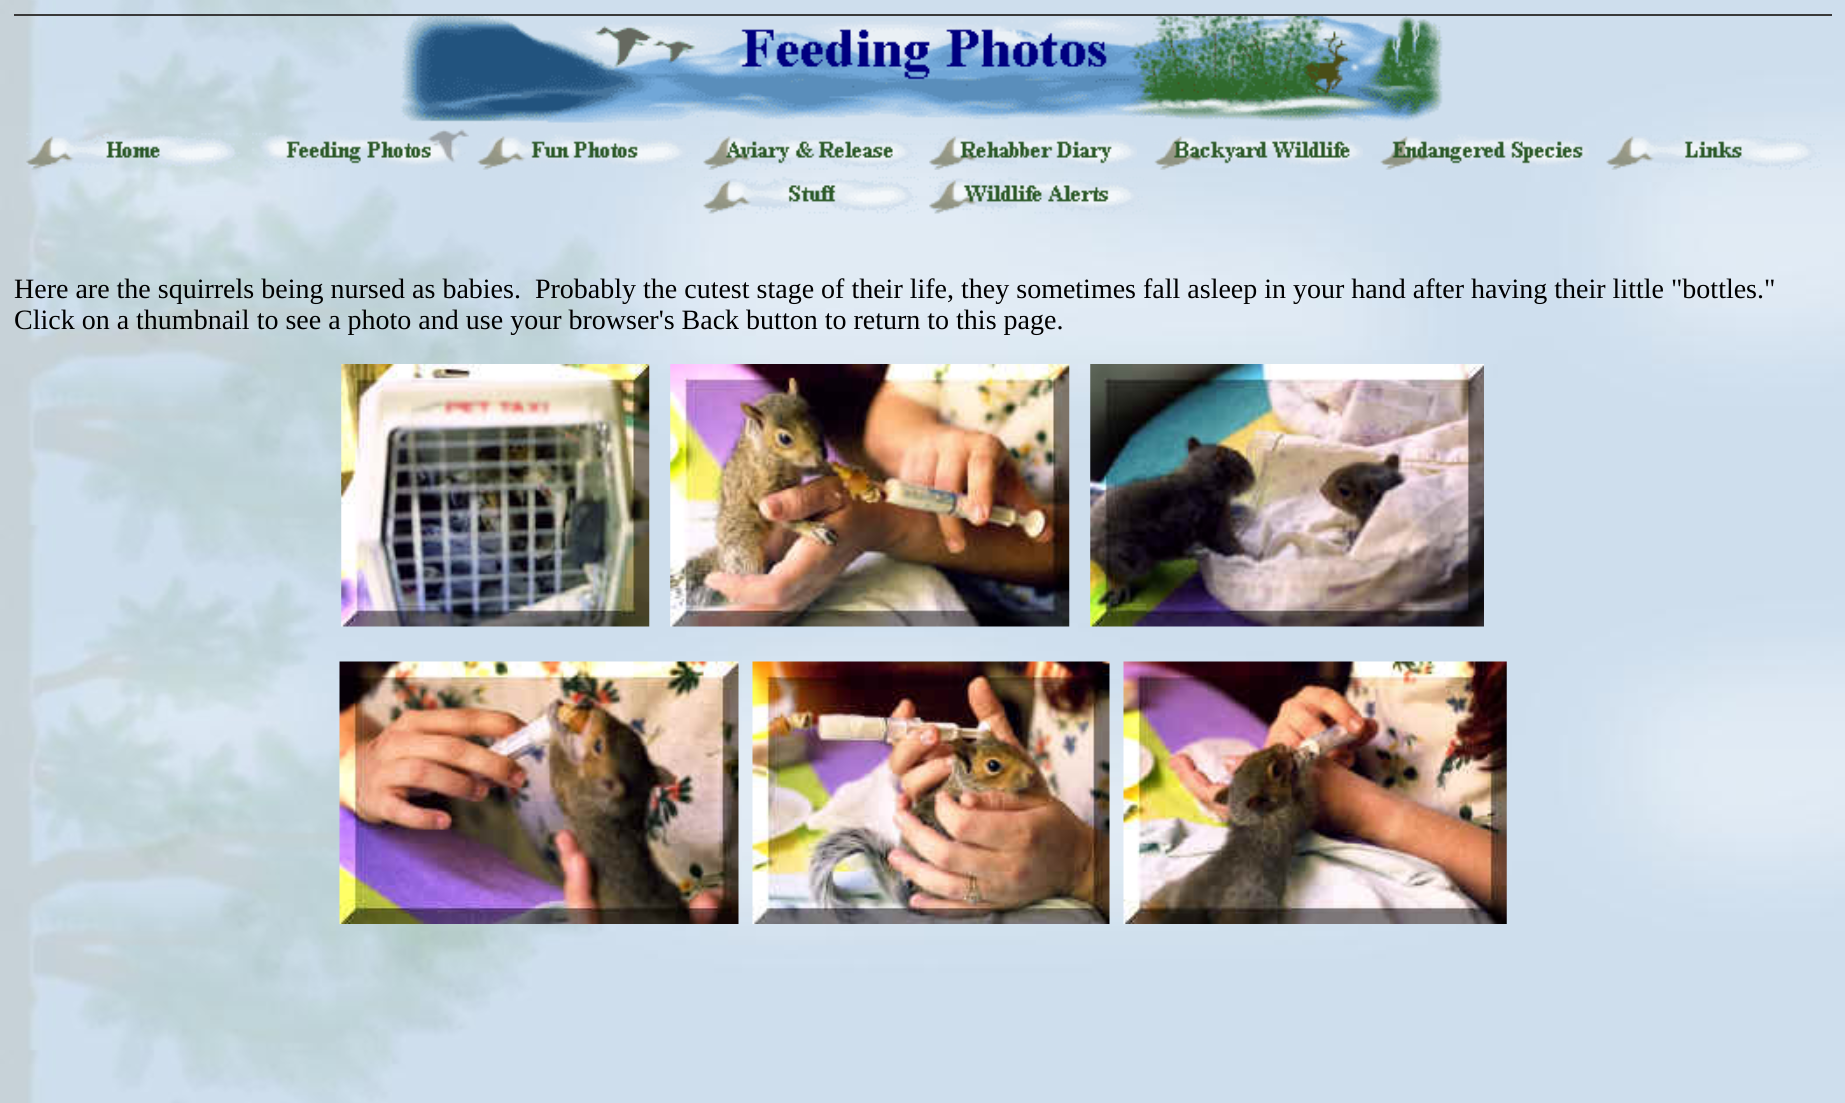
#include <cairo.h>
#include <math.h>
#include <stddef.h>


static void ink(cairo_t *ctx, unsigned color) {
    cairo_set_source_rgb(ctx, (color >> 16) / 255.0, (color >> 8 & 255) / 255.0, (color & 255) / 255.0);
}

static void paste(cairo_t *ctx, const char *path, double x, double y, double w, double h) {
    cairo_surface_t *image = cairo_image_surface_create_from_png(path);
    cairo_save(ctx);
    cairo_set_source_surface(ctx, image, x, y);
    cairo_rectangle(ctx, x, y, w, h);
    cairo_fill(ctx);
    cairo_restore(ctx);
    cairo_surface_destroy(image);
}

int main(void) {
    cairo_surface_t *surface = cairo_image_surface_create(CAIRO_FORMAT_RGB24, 1845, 1103);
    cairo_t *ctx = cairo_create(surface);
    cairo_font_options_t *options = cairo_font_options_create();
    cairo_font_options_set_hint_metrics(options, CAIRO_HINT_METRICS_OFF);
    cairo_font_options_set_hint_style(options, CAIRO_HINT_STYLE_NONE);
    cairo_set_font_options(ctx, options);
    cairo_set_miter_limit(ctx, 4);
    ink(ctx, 0xFFFFFF);
    cairo_paint(ctx);
    paste(ctx, "media/1.png", 0, 0, 1845, 1103);
    ink(ctx, 0x393939);
    cairo_rectangle(ctx, 14, 14, 1818, 2);
    cairo_fill(ctx);
    paste(ctx, "media/2.png", 400, 16, 1043, 108);
    paste(ctx, "media/3.png", 26, 133, 216, 37);
    paste(ctx, "media/4.png", 252, 129, 217, 41);
    paste(ctx, "media/5.png", 477, 134, 216, 36);
    paste(ctx, "media/6.png", 703, 133, 216, 37);
    paste(ctx, "media/7.png", 929, 133, 208, 37);
    paste(ctx, "media/8.png", 1154, 135, 209, 35);
    paste(ctx, "media/9.png", 1380, 134, 209, 36);
    paste(ctx, "media/10.png", 1606, 133, 216, 37);
    paste(ctx, "media/11.png", 703, 176, 216, 38);
    paste(ctx, "media/12.png", 929, 176, 215, 38);
    cairo_select_font_face(ctx, "Liberation Serif", CAIRO_FONT_SLANT_NORMAL, CAIRO_FONT_WEIGHT_NORMAL);
    cairo_set_font_size(ctx, 28);
    ink(ctx, 0x000000);
    cairo_move_to(ctx, 14, 298);
    cairo_show_text(ctx, "Here are the squirrels being nursed as babies.  Probably the cutest stage of their life, they sometimes fall asleep in your hand after having their little \"bottles.\"");
    cairo_move_to(ctx, 14, 329);
    cairo_show_text(ctx, "Click on a thumbnail to see a photo and use your browser's Back button to return to this page.");
    paste(ctx, "media/13.png", 341, 364, 309, 263);
    paste(ctx, "media/14.png", 670, 364, 400, 263);
    paste(ctx, "media/15.png", 1090, 364, 394, 263);
    paste(ctx, "media/16.png", 339, 661, 400, 263);
    paste(ctx, "media/17.png", 752, 661, 358, 263);
    paste(ctx, "media/18.png", 1123, 661, 384, 263);
    cairo_surface_write_to_png(surface, "image.png");
    cairo_font_options_destroy(options);
    cairo_destroy(ctx);
    cairo_surface_destroy(surface);
    return 0;
}
